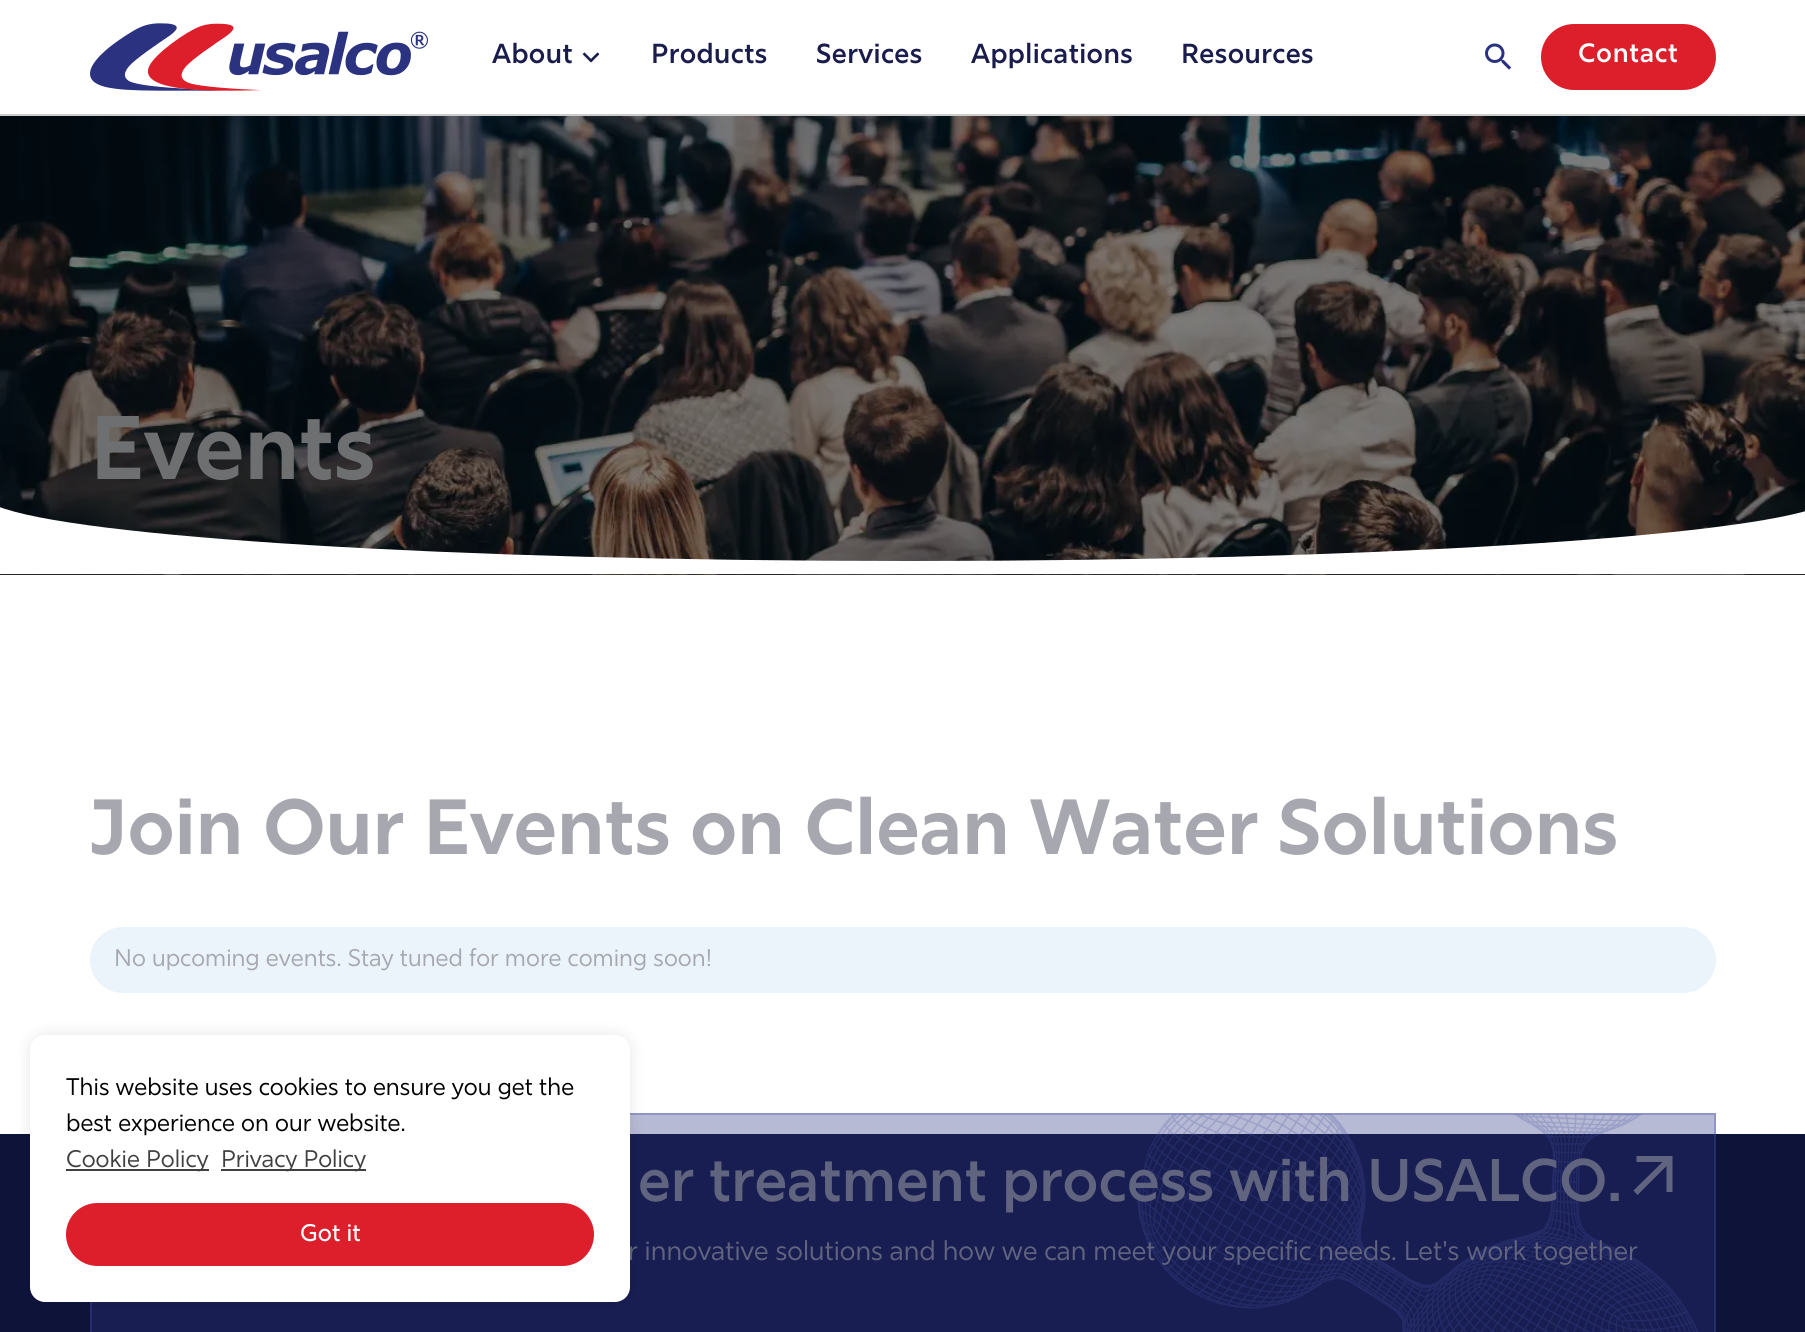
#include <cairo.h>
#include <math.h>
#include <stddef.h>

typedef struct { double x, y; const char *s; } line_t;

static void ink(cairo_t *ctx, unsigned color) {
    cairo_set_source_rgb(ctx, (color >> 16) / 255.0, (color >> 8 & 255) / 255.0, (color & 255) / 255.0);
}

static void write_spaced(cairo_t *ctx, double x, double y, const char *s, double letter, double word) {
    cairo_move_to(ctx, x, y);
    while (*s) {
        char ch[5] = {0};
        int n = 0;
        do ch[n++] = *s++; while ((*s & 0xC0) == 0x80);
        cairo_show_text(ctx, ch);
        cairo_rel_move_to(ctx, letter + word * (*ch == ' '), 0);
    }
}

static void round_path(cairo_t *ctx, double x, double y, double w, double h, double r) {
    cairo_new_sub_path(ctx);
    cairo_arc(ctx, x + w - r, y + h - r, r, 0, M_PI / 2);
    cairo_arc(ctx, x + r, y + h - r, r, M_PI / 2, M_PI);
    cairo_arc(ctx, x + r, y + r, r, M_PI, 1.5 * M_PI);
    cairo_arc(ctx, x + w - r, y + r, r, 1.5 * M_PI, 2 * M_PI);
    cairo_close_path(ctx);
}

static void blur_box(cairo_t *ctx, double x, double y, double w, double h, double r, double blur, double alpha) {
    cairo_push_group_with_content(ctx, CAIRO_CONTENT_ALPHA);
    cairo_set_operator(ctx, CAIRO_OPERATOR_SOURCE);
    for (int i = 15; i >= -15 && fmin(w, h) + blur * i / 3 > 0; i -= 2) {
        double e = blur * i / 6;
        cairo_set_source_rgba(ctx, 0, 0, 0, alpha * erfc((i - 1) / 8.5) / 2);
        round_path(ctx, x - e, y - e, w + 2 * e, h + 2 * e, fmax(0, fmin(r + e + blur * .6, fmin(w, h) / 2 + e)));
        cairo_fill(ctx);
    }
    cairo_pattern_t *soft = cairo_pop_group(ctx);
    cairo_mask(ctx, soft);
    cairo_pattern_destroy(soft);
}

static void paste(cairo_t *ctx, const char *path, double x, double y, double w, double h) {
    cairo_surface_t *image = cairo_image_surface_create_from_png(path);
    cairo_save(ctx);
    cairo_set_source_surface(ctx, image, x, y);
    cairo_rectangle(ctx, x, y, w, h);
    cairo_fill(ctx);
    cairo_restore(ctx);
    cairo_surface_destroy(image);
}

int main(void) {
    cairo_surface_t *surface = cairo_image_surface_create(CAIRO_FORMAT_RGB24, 1805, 1332);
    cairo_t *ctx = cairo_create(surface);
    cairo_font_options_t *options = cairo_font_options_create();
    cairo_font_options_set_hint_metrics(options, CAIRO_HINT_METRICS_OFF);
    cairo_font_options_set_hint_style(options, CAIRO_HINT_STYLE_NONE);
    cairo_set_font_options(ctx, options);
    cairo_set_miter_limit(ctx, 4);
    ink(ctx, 0xFFFFFF);
    cairo_paint(ctx);
    ink(ctx, 0xB7BAD4);
    cairo_rectangle(ctx, 630, 1113, 1086, 21);
    cairo_fill(ctx);
    ink(ctx, 0xCCCCCC);
    cairo_rectangle(ctx, 0, 114, 1805, 2);
    cairo_fill(ctx);
    paste(ctx, "media/1.png", 90, 23, 338, 68);
    cairo_select_font_face(ctx, "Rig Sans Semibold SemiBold", CAIRO_FONT_SLANT_NORMAL, CAIRO_FONT_WEIGHT_NORMAL);
    cairo_set_font_size(ctx, 27.5);
    ink(ctx, 0x1A1D4C);
    write_spaced(ctx, 492, 63, "About", 0.4, 0);
    paste(ctx, "media/2.png", 582, 52, 18, 11);
    {
        static const line_t items[] = {
            {651, 63, "Products"},
            {816, 63, "Services"},
            {971, 63, "Applications"},
            {1181, 63, "Resources"},
        };
        for (size_t i = 0; i < sizeof items / sizeof *items; i++) {
            write_spaced(ctx, items[i].x, items[i].y, items[i].s, 0.4, 0);
        }
    }
    paste(ctx, "media/3.png", 1485, 43, 27, 27);
    ink(ctx, 0xDD1F2C);
    round_path(ctx, 1542, 25, 173, 64, 32);
    cairo_fill_preserve(ctx);
    cairo_stroke(ctx);
    cairo_set_font_size(ctx, 26.5);
    ink(ctx, 0xFFFFFF);
    write_spaced(ctx, 1578, 62, "Contact", 0.75, 0);
    ink(ctx, 0x404040);
    cairo_rectangle(ctx, 0, 574, 1805, 1);
    cairo_fill(ctx);
    paste(ctx, "media/4.png", 0, 116, 1805, 459);
    cairo_select_font_face(ctx, "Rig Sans", CAIRO_FONT_SLANT_NORMAL, CAIRO_FONT_WEIGHT_BOLD);
    cairo_set_font_size(ctx, 90);
    ink(ctx, 0x6E6F70);
    cairo_move_to(ctx, 90, 479);
    cairo_show_text(ctx, "Events");
    ink(ctx, 0xFFFFFF);
    cairo_new_path(ctx);
    cairo_move_to(ctx, -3, 506);
    cairo_line_to(ctx, -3, 574);
    cairo_line_to(ctx, 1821, 574);
    cairo_line_to(ctx, 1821, 506);
    cairo_curve_to(ctx, 1746, 537, 1366, 561, 909, 561);
    cairo_curve_to(ctx, 452, 561, 72, 537, -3, 506);
    cairo_close_path(ctx);
    cairo_fill(ctx);
    cairo_set_font_size(ctx, 78);
    ink(ctx, 0xA7A8AF);
    cairo_move_to(ctx, 90, 854);
    cairo_show_text(ctx, "Join Our Events on Clean Water Solutions");
    ink(ctx, 0xEBF4FB);
    round_path(ctx, 90, 927, 1626, 66, 33);
    cairo_fill(ctx);
    cairo_select_font_face(ctx, "Rig Sans", CAIRO_FONT_SLANT_NORMAL, CAIRO_FONT_WEIGHT_NORMAL);
    cairo_set_font_size(ctx, 24);
    ink(ctx, 0xA7A8AF);
    cairo_move_to(ctx, 114, 966);
    cairo_show_text(ctx, "No upcoming events. Stay tuned for more coming soon!");
    ink(ctx, 0x0E133A);
    cairo_rectangle(ctx, 0, 1134, 1805, 198);
    cairo_fill(ctx);
    ink(ctx, 0x181E52);
    cairo_rectangle(ctx, 90, 1134, 1626, 198);
    cairo_fill(ctx);
    cairo_rectangle(ctx, 91, 1114, 1624, 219);
    cairo_set_source_rgba(ctx, 0.275, 0.31, 0.659, 0.34);
    cairo_stroke(ctx);
    paste(ctx, "media/5.png", 1137, 1114, 562, 218);
    cairo_select_font_face(ctx, "Rig Sans Semibold SemiBold", CAIRO_FONT_SLANT_NORMAL, CAIRO_FONT_WEIGHT_NORMAL);
    cairo_set_font_size(ctx, 60);
    ink(ctx, 0x61647E);
    cairo_move_to(ctx, 638, 1201);
    cairo_show_text(ctx, "er treatment process with USALCO.");
    cairo_select_font_face(ctx, "Rig Sans", CAIRO_FONT_SLANT_NORMAL, CAIRO_FONT_WEIGHT_NORMAL);
    cairo_set_font_size(ctx, 27);
    cairo_move_to(ctx, 628, 1260);
    cairo_show_text(ctx, "r innovative solutions and how we can meet your specific needs. Let's work together");
    cairo_new_path(ctx);
    cairo_move_to(ctx, 1636.5, 1156);
    cairo_line_to(ctx, 1636.5, 1162);
    cairo_line_to(ctx, 1662.5, 1162);
    cairo_line_to(ctx, 1633.5, 1190.5);
    cairo_line_to(ctx, 1637.5, 1195);
    cairo_line_to(ctx, 1666.5, 1166);
    cairo_line_to(ctx, 1666.5, 1192);
    cairo_line_to(ctx, 1672.5, 1192);
    cairo_line_to(ctx, 1672.5, 1156);
    cairo_close_path(ctx);
    cairo_fill(ctx);
    ink(ctx, 0x000000);
    blur_box(ctx, 30, 1035, 600, 267, 15, 7.5, 0.1);
    ink(ctx, 0xFFFFFF);
    round_path(ctx, 30, 1035, 600, 267, 15);
    cairo_fill(ctx);
    cairo_set_font_size(ctx, 24);
    ink(ctx, 0x000000);
    cairo_move_to(ctx, 66, 1095);
    cairo_show_text(ctx, "This website uses cookies to ensure you get the");
    cairo_move_to(ctx, 66, 1131);
    cairo_show_text(ctx, "best experience on our website.");
    ink(ctx, 0x404040);
    cairo_rectangle(ctx, 66, 1169, 143, 2);
    cairo_fill(ctx);
    ink(ctx, 0x3F3F3F);
    cairo_move_to(ctx, 66, 1167);
    cairo_show_text(ctx, "Cookie Policy");
    ink(ctx, 0x404040);
    cairo_rectangle(ctx, 221, 1169, 145, 2);
    cairo_fill(ctx);
    ink(ctx, 0x3F3F3F);
    cairo_move_to(ctx, 221, 1167);
    cairo_show_text(ctx, "Privacy Policy");
    ink(ctx, 0xDD1F2C);
    round_path(ctx, 67, 1204, 526, 61, 30.5);
    cairo_fill_preserve(ctx);
    cairo_stroke(ctx);
    cairo_select_font_face(ctx, "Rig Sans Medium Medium", CAIRO_FONT_SLANT_NORMAL, CAIRO_FONT_WEIGHT_NORMAL);
    ink(ctx, 0xFFFFFF);
    cairo_move_to(ctx, 300, 1241);
    cairo_show_text(ctx, "Got it");
    cairo_surface_write_to_png(surface, "image.png");
    cairo_font_options_destroy(options);
    cairo_destroy(ctx);
    cairo_surface_destroy(surface);
    return 0;
}
